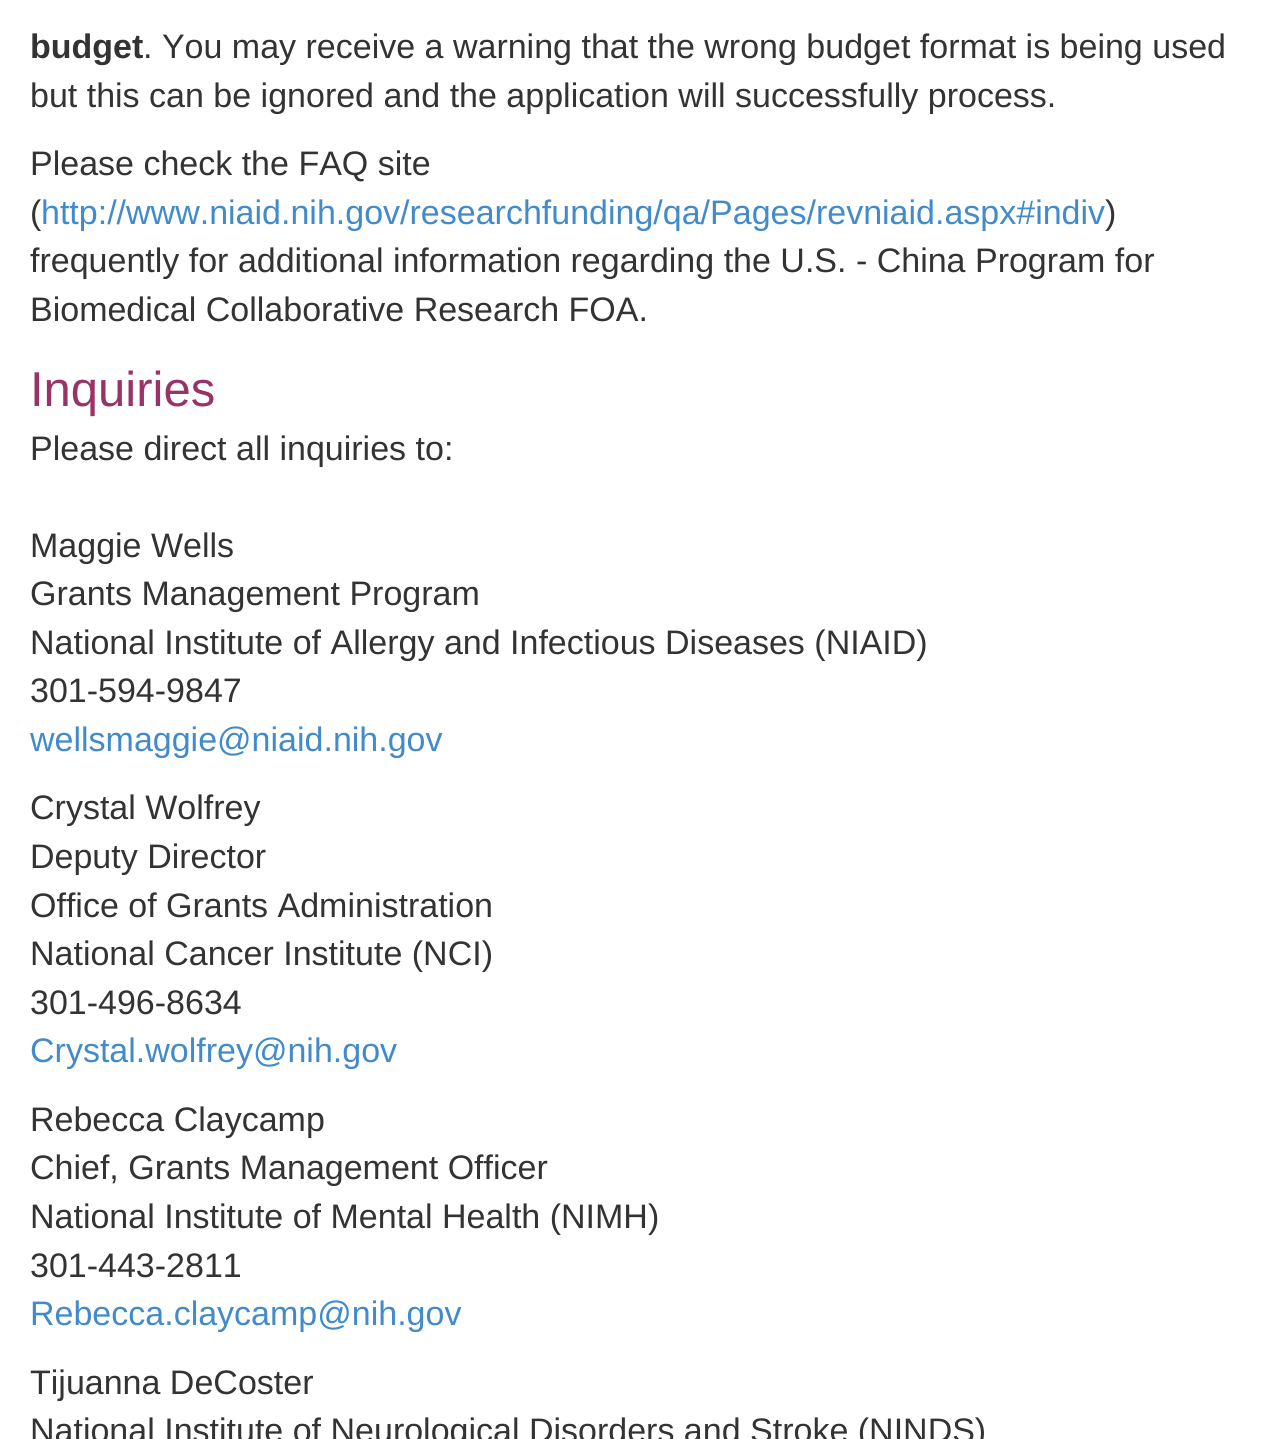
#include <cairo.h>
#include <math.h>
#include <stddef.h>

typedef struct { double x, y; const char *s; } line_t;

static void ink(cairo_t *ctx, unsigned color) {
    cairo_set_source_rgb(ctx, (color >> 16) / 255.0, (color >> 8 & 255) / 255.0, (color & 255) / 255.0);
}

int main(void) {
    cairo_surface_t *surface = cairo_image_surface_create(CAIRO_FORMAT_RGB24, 1266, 1439);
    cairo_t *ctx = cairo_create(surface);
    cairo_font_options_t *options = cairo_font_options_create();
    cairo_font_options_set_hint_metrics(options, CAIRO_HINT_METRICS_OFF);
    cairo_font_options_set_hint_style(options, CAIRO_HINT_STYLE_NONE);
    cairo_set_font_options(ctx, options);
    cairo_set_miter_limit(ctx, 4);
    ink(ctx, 0xFFFFFF);
    cairo_paint(ctx);
    cairo_select_font_face(ctx, "Liberation Sans", CAIRO_FONT_SLANT_NORMAL, CAIRO_FONT_WEIGHT_BOLD);
    cairo_set_font_size(ctx, 34);
    ink(ctx, 0x333333);
    cairo_move_to(ctx, 30, 58);
    cairo_show_text(ctx, "budget");
    cairo_select_font_face(ctx, "Liberation Sans", CAIRO_FONT_SLANT_NORMAL, CAIRO_FONT_WEIGHT_NORMAL);
    {
        static const line_t items[] = {
            {143, 58, ". You may receive a warning that the wrong budget format is being used"},
            {30, 107, "but this can be ignored and the application will successfully process."},
            {30, 175, "Please check the FAQ site"},
            {30, 224, "("},
        };
        for (size_t i = 0; i < sizeof items / sizeof *items; i++) {
            cairo_move_to(ctx, items[i].x, items[i].y);
            cairo_show_text(ctx, items[i].s);
        }
    }
    ink(ctx, 0x428BCA);
    cairo_move_to(ctx, 41, 224);
    cairo_show_text(ctx, "http://www.niaid.nih.gov/researchfunding/qa/Pages/revniaid.aspx#indiv");
    ink(ctx, 0x333333);
    {
        static const line_t items[] = {
            {1105, 224, ")"},
            {30, 272, "frequently for additional information regarding the U.S. - China Program for"},
            {30, 321, "Biomedical Collaborative Research FOA."},
        };
        for (size_t i = 0; i < sizeof items / sizeof *items; i++) {
            cairo_move_to(ctx, items[i].x, items[i].y);
            cairo_show_text(ctx, items[i].s);
        }
    }
    cairo_set_font_size(ctx, 49);
    ink(ctx, 0x993366);
    cairo_move_to(ctx, 30, 406);
    cairo_show_text(ctx, "Inquiries");
    cairo_set_font_size(ctx, 34);
    ink(ctx, 0x333333);
    {
        static const line_t items[] = {
            {30, 460, "Please direct all inquiries to:"},
            {30, 557, "Maggie Wells"},
            {30, 605, "Grants Management Program"},
            {30, 654, "National Institute of Allergy and Infectious Diseases (NIAID)"},
            {30, 702, "301-594-9847"},
        };
        for (size_t i = 0; i < sizeof items / sizeof *items; i++) {
            cairo_move_to(ctx, items[i].x, items[i].y);
            cairo_show_text(ctx, items[i].s);
        }
    }
    ink(ctx, 0x428BCA);
    cairo_move_to(ctx, 30, 751);
    cairo_show_text(ctx, "wellsmaggie@niaid.nih.gov");
    ink(ctx, 0x333333);
    {
        static const line_t items[] = {
            {30, 819, "Crystal Wolfrey"},
            {30, 868, "Deputy Director"},
            {30, 917, "Office of Grants Administration"},
            {30, 965, "National Cancer Institute (NCI)"},
            {30, 1014, "301-496-8634"},
        };
        for (size_t i = 0; i < sizeof items / sizeof *items; i++) {
            cairo_move_to(ctx, items[i].x, items[i].y);
            cairo_show_text(ctx, items[i].s);
        }
    }
    ink(ctx, 0x428BCA);
    cairo_move_to(ctx, 30, 1062);
    cairo_show_text(ctx, "Crystal.wolfrey@nih.gov");
    ink(ctx, 0x333333);
    {
        static const line_t items[] = {
            {30, 1131, "Rebecca Claycamp"},
            {30, 1179, "Chief, Grants Management Officer"},
            {30, 1228, "National Institute of Mental Health (NIMH)"},
            {30, 1277, "301-443-2811"},
        };
        for (size_t i = 0; i < sizeof items / sizeof *items; i++) {
            cairo_move_to(ctx, items[i].x, items[i].y);
            cairo_show_text(ctx, items[i].s);
        }
    }
    ink(ctx, 0x428BCA);
    cairo_move_to(ctx, 30, 1325);
    cairo_show_text(ctx, "Rebecca.claycamp@nih.gov");
    ink(ctx, 0x333333);
    cairo_move_to(ctx, 30, 1394);
    cairo_show_text(ctx, "Tijuanna DeCoster");
    cairo_move_to(ctx, 30, 1442);
    cairo_show_text(ctx, "National Institute of Neurological Disorders and Stroke (NINDS)");
    cairo_surface_write_to_png(surface, "image.png");
    cairo_font_options_destroy(options);
    cairo_destroy(ctx);
    cairo_surface_destroy(surface);
    return 0;
}
